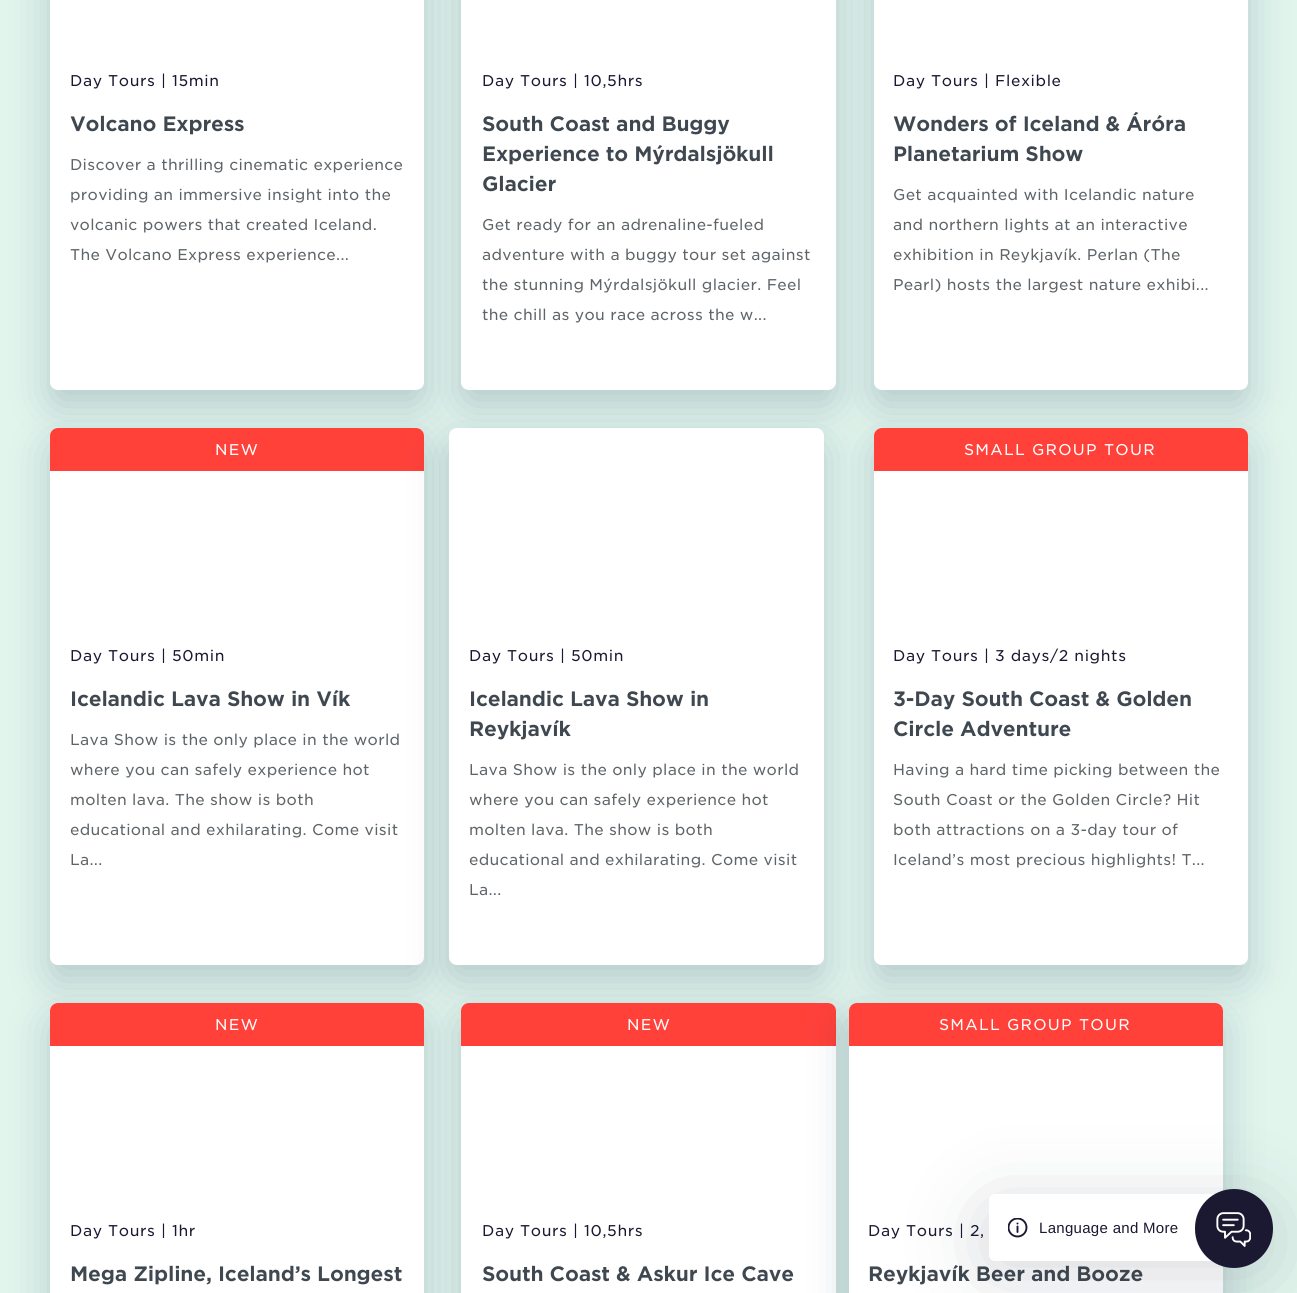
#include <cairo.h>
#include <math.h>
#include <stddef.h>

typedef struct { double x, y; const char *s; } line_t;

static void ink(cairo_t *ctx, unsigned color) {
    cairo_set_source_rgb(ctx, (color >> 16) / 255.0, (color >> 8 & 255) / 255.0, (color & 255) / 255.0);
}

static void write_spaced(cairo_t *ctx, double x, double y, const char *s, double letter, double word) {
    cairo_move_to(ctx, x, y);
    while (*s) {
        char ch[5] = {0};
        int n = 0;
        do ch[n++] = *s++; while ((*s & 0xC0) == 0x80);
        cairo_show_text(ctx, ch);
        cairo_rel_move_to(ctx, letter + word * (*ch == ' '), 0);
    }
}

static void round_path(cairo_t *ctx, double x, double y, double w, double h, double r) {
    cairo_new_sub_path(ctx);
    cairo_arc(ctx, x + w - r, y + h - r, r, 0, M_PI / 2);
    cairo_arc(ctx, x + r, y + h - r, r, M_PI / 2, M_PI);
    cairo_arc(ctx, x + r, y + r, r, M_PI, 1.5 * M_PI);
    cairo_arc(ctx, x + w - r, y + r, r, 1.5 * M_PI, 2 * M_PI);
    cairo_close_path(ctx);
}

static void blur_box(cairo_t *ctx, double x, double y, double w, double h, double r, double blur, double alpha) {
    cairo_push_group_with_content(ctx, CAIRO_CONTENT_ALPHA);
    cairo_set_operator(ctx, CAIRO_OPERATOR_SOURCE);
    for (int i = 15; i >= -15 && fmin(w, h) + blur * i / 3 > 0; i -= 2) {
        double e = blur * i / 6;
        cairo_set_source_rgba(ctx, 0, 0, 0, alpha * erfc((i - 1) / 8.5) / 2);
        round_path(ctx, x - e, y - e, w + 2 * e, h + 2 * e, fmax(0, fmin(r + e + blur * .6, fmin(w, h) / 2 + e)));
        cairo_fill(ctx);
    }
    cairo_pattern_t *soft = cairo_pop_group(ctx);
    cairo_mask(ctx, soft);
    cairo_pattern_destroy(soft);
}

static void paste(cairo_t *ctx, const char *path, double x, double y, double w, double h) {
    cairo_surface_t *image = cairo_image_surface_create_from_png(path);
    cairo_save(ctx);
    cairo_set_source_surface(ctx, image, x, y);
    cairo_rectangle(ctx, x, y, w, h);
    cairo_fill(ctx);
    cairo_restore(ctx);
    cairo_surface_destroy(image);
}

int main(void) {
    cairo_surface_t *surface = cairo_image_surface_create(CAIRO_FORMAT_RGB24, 1297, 1293);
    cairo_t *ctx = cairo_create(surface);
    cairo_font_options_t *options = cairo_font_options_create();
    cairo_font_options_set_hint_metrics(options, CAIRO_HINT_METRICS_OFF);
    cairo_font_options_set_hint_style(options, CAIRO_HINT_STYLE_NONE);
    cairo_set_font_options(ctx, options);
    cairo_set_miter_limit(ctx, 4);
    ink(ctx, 0xE1F5ED);
    cairo_paint(ctx);
    ink(ctx, 0x001F3E);
    blur_box(ctx, 50, -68, 374, 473, 8, 20, 0.2);
    ink(ctx, 0xFFFFFF);
    round_path(ctx, 50, -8, 374, 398, 8);
    cairo_fill(ctx);
    cairo_select_font_face(ctx, "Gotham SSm", CAIRO_FONT_SLANT_NORMAL, CAIRO_FONT_WEIGHT_NORMAL);
    cairo_set_font_size(ctx, 15);
    ink(ctx, 0x1B1831);
    write_spaced(ctx, 70, 86, "Day Tours | 15min", 0.6, 0);
    cairo_select_font_face(ctx, "Gotham SSm", CAIRO_FONT_SLANT_NORMAL, CAIRO_FONT_WEIGHT_BOLD);
    cairo_set_font_size(ctx, 20);
    ink(ctx, 0x3F4850);
    write_spaced(ctx, 70, 131, "Volcano Express", -0.2, 0);
    cairo_select_font_face(ctx, "Gotham SSm", CAIRO_FONT_SLANT_NORMAL, CAIRO_FONT_WEIGHT_NORMAL);
    cairo_set_font_size(ctx, 15);
    ink(ctx, 0x5E6468);
    {
        static const line_t items[] = {
            {70, 170, "Discover a thrilling cinematic experience"},
            {70, 200, "providing an immersive insight into the"},
            {70, 230, "volcanic powers that created Iceland."},
            {70, 260, "The Volcano Express experience..."},
        };
        for (size_t i = 0; i < sizeof items / sizeof *items; i++) {
            write_spaced(ctx, items[i].x, items[i].y, items[i].s, 0.3, 0);
        }
    }
    ink(ctx, 0x001F3E);
    blur_box(ctx, 461, -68, 375, 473, 8, 20, 0.2);
    ink(ctx, 0xFFFFFF);
    round_path(ctx, 461, -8, 375, 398, 8);
    cairo_fill(ctx);
    ink(ctx, 0x1B1831);
    write_spaced(ctx, 482, 86, "Day Tours | 10,5hrs", 0.6, 0);
    cairo_select_font_face(ctx, "Gotham SSm", CAIRO_FONT_SLANT_NORMAL, CAIRO_FONT_WEIGHT_BOLD);
    cairo_set_font_size(ctx, 20);
    ink(ctx, 0x3F4850);
    {
        static const line_t items[] = {
            {482, 131, "South Coast and Buggy"},
            {482, 161, "Experience to Mýrdalsjökull"},
            {482, 191, "Glacier"},
        };
        for (size_t i = 0; i < sizeof items / sizeof *items; i++) {
            write_spaced(ctx, items[i].x, items[i].y, items[i].s, -0.2, 0);
        }
    }
    cairo_select_font_face(ctx, "Gotham SSm", CAIRO_FONT_SLANT_NORMAL, CAIRO_FONT_WEIGHT_NORMAL);
    cairo_set_font_size(ctx, 15);
    ink(ctx, 0x5E6468);
    {
        static const line_t items[] = {
            {482, 230, "Get ready for an adrenaline-fueled"},
            {482, 260, "adventure with a buggy tour set against"},
            {482, 290, "the stunning Mýrdalsjökull glacier. Feel"},
            {482, 320, "the chill as you race across the w..."},
        };
        for (size_t i = 0; i < sizeof items / sizeof *items; i++) {
            write_spaced(ctx, items[i].x, items[i].y, items[i].s, 0.3, 0);
        }
    }
    ink(ctx, 0x001F3E);
    blur_box(ctx, 874, -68, 374, 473, 8, 20, 0.2);
    ink(ctx, 0xFFFFFF);
    round_path(ctx, 874, -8, 374, 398, 8);
    cairo_fill(ctx);
    ink(ctx, 0x1B1831);
    write_spaced(ctx, 893, 86, "Day Tours | Flexible", 0.6, 0);
    cairo_select_font_face(ctx, "Gotham SSm", CAIRO_FONT_SLANT_NORMAL, CAIRO_FONT_WEIGHT_BOLD);
    cairo_set_font_size(ctx, 20);
    ink(ctx, 0x3F4850);
    write_spaced(ctx, 893, 131, "Wonders of Iceland & Áróra", -0.2, 0);
    write_spaced(ctx, 893, 161, "Planetarium Show", -0.2, 0);
    cairo_select_font_face(ctx, "Gotham SSm", CAIRO_FONT_SLANT_NORMAL, CAIRO_FONT_WEIGHT_NORMAL);
    cairo_set_font_size(ctx, 15);
    ink(ctx, 0x5E6468);
    {
        static const line_t items[] = {
            {893, 200, "Get acquainted with Icelandic nature"},
            {893, 230, "and northern lights at an interactive"},
            {893, 260, "exhibition in Reykjavík. Perlan (The"},
            {893, 290, "Pearl) hosts the largest nature exhibi..."},
        };
        for (size_t i = 0; i < sizeof items / sizeof *items; i++) {
            write_spaced(ctx, items[i].x, items[i].y, items[i].s, 0.3, 0);
        }
    }
    ink(ctx, 0x001F3E);
    blur_box(ctx, 50, 443, 374, 537, 8, 20, 0.2);
    ink(ctx, 0xFFFFFF);
    round_path(ctx, 50, 428, 374, 537, 8);
    cairo_fill(ctx);
    ink(ctx, 0xFF413A);
    cairo_new_path(ctx);
    cairo_move_to(ctx, 58, 428);
    cairo_line_to(ctx, 416, 428);
    cairo_curve_to(ctx, 420.5, 428, 424, 431.5, 424, 436);
    cairo_line_to(ctx, 424, 471);
    cairo_line_to(ctx, 50, 471);
    cairo_line_to(ctx, 50, 436);
    cairo_curve_to(ctx, 50, 431.5, 53.5, 428, 58, 428);
    cairo_close_path(ctx);
    cairo_fill(ctx);
    ink(ctx, 0xFFFFFF);
    write_spaced(ctx, 215, 455, "NEW", 1.25, 0);
    ink(ctx, 0x1B1831);
    write_spaced(ctx, 70, 661, "Day Tours | 50min", 0.6, 0);
    cairo_select_font_face(ctx, "Gotham SSm", CAIRO_FONT_SLANT_NORMAL, CAIRO_FONT_WEIGHT_BOLD);
    cairo_set_font_size(ctx, 20);
    ink(ctx, 0x3F4850);
    write_spaced(ctx, 70, 706, "Icelandic Lava Show in Vík", -0.2, 0);
    cairo_select_font_face(ctx, "Gotham SSm", CAIRO_FONT_SLANT_NORMAL, CAIRO_FONT_WEIGHT_NORMAL);
    cairo_set_font_size(ctx, 15);
    ink(ctx, 0x5E6468);
    {
        static const line_t items[] = {
            {70, 745, "Lava Show is the only place in the world"},
            {70, 775, "where you can safely experience hot"},
            {70, 805, "molten lava. The show is both"},
            {70, 835, "educational and exhilarating. Come visit"},
            {70, 865, "La..."},
        };
        for (size_t i = 0; i < sizeof items / sizeof *items; i++) {
            write_spaced(ctx, items[i].x, items[i].y, items[i].s, 0.3, 0);
        }
    }
    ink(ctx, 0x001F3E);
    blur_box(ctx, 449, 443, 375, 537, 8, 20, 0.2);
    ink(ctx, 0xFFFFFF);
    round_path(ctx, 449, 428, 375, 537, 8);
    cairo_fill(ctx);
    ink(ctx, 0x1B1831);
    write_spaced(ctx, 469, 661, "Day Tours | 50min", 0.6, 0);
    cairo_select_font_face(ctx, "Gotham SSm", CAIRO_FONT_SLANT_NORMAL, CAIRO_FONT_WEIGHT_BOLD);
    cairo_set_font_size(ctx, 20);
    ink(ctx, 0x3F4850);
    write_spaced(ctx, 469, 706, "Icelandic Lava Show in", -0.2, 0);
    write_spaced(ctx, 469, 736, "Reykjavík", -0.2, 0);
    cairo_select_font_face(ctx, "Gotham SSm", CAIRO_FONT_SLANT_NORMAL, CAIRO_FONT_WEIGHT_NORMAL);
    cairo_set_font_size(ctx, 15);
    ink(ctx, 0x5E6468);
    {
        static const line_t items[] = {
            {469, 775, "Lava Show is the only place in the world"},
            {469, 805, "where you can safely experience hot"},
            {469, 835, "molten lava. The show is both"},
            {469, 865, "educational and exhilarating. Come visit"},
            {469, 895, "La..."},
        };
        for (size_t i = 0; i < sizeof items / sizeof *items; i++) {
            write_spaced(ctx, items[i].x, items[i].y, items[i].s, 0.3, 0);
        }
    }
    ink(ctx, 0x001F3E);
    blur_box(ctx, 874, 443, 374, 537, 8, 20, 0.2);
    ink(ctx, 0xFFFFFF);
    round_path(ctx, 874, 428, 374, 537, 8);
    cairo_fill(ctx);
    ink(ctx, 0xFF413A);
    cairo_new_path(ctx);
    cairo_move_to(ctx, 882, 428);
    cairo_line_to(ctx, 1240, 428);
    cairo_curve_to(ctx, 1244.5, 428, 1248, 431.5, 1248, 436);
    cairo_line_to(ctx, 1248, 471);
    cairo_line_to(ctx, 874, 471);
    cairo_line_to(ctx, 874, 436);
    cairo_curve_to(ctx, 874, 431.5, 877.5, 428, 882, 428);
    cairo_close_path(ctx);
    cairo_fill(ctx);
    ink(ctx, 0xFFFFFF);
    write_spaced(ctx, 964, 455, "SMALL GROUP TOUR", 1.25, 0);
    ink(ctx, 0x1B1831);
    write_spaced(ctx, 893, 661, "Day Tours | 3 days/2 nights", 0.6, 0);
    cairo_select_font_face(ctx, "Gotham SSm", CAIRO_FONT_SLANT_NORMAL, CAIRO_FONT_WEIGHT_BOLD);
    cairo_set_font_size(ctx, 20);
    ink(ctx, 0x3F4850);
    write_spaced(ctx, 893, 706, "3-Day South Coast & Golden", -0.2, 0);
    write_spaced(ctx, 893, 736, "Circle Adventure", -0.2, 0);
    cairo_select_font_face(ctx, "Gotham SSm", CAIRO_FONT_SLANT_NORMAL, CAIRO_FONT_WEIGHT_NORMAL);
    cairo_set_font_size(ctx, 15);
    ink(ctx, 0x5E6468);
    {
        static const line_t items[] = {
            {893, 775, "Having a hard time picking between the"},
            {893, 805, "South Coast or the Golden Circle? Hit"},
            {893, 835, "both attractions on a 3-day tour of"},
            {893, 865, "Iceland’s most precious highlights! T..."},
        };
        for (size_t i = 0; i < sizeof items / sizeof *items; i++) {
            write_spaced(ctx, items[i].x, items[i].y, items[i].s, 0.3, 0);
        }
    }
    ink(ctx, 0x001F3E);
    blur_box(ctx, 50, 1018, 374, 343, 8, 20, 0.2);
    ink(ctx, 0xFFFFFF);
    round_path(ctx, 50, 1003, 374, 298, 8);
    cairo_fill(ctx);
    ink(ctx, 0xFF413A);
    cairo_new_path(ctx);
    cairo_move_to(ctx, 58, 1003);
    cairo_line_to(ctx, 416, 1003);
    cairo_curve_to(ctx, 420.5, 1003, 424, 1006.5, 424, 1011);
    cairo_line_to(ctx, 424, 1046);
    cairo_line_to(ctx, 50, 1046);
    cairo_line_to(ctx, 50, 1011);
    cairo_curve_to(ctx, 50, 1006.5, 53.5, 1003, 58, 1003);
    cairo_close_path(ctx);
    cairo_fill(ctx);
    ink(ctx, 0xFFFFFF);
    write_spaced(ctx, 215, 1030, "NEW", 1.25, 0);
    ink(ctx, 0x1B1831);
    write_spaced(ctx, 70, 1236, "Day Tours | 1hr", 0.6, 0);
    cairo_select_font_face(ctx, "Gotham SSm", CAIRO_FONT_SLANT_NORMAL, CAIRO_FONT_WEIGHT_BOLD);
    cairo_set_font_size(ctx, 20);
    ink(ctx, 0x3F4850);
    write_spaced(ctx, 70, 1281, "Mega Zipline, Iceland’s Longest", -0.2, 0);
    ink(ctx, 0x001F3E);
    blur_box(ctx, 461, 1018, 375, 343, 8, 20, 0.2);
    ink(ctx, 0xFFFFFF);
    round_path(ctx, 461, 1003, 375, 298, 8);
    cairo_fill(ctx);
    ink(ctx, 0xFF413A);
    cairo_new_path(ctx);
    cairo_move_to(ctx, 469, 1003);
    cairo_line_to(ctx, 828, 1003);
    cairo_curve_to(ctx, 832.5, 1003, 836, 1006.5, 836, 1011);
    cairo_line_to(ctx, 836, 1046);
    cairo_line_to(ctx, 461, 1046);
    cairo_line_to(ctx, 461, 1011);
    cairo_curve_to(ctx, 461, 1006.5, 464.5, 1003, 469, 1003);
    cairo_close_path(ctx);
    cairo_fill(ctx);
    cairo_select_font_face(ctx, "Gotham SSm", CAIRO_FONT_SLANT_NORMAL, CAIRO_FONT_WEIGHT_NORMAL);
    cairo_set_font_size(ctx, 15);
    ink(ctx, 0xFFFFFF);
    write_spaced(ctx, 627, 1030, "NEW", 1.25, 0);
    ink(ctx, 0x1B1831);
    write_spaced(ctx, 482, 1236, "Day Tours | 10,5hrs", 0.6, 0);
    cairo_select_font_face(ctx, "Gotham SSm", CAIRO_FONT_SLANT_NORMAL, CAIRO_FONT_WEIGHT_BOLD);
    cairo_set_font_size(ctx, 20);
    ink(ctx, 0x3F4850);
    write_spaced(ctx, 482, 1281, "South Coast & Askur Ice Cave", -0.2, 0);
    ink(ctx, 0x001F3E);
    blur_box(ctx, 849, 1018, 374, 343, 8, 20, 0.2);
    ink(ctx, 0xFFFFFF);
    round_path(ctx, 849, 1003, 374, 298, 8);
    cairo_fill(ctx);
    ink(ctx, 0xFF413A);
    cairo_new_path(ctx);
    cairo_move_to(ctx, 857, 1003);
    cairo_line_to(ctx, 1215, 1003);
    cairo_curve_to(ctx, 1219.5, 1003, 1223, 1006.5, 1223, 1011);
    cairo_line_to(ctx, 1223, 1046);
    cairo_line_to(ctx, 849, 1046);
    cairo_line_to(ctx, 849, 1011);
    cairo_curve_to(ctx, 849, 1006.5, 852.5, 1003, 857, 1003);
    cairo_close_path(ctx);
    cairo_fill(ctx);
    cairo_select_font_face(ctx, "Gotham SSm", CAIRO_FONT_SLANT_NORMAL, CAIRO_FONT_WEIGHT_NORMAL);
    cairo_set_font_size(ctx, 15);
    ink(ctx, 0xFFFFFF);
    write_spaced(ctx, 939, 1030, "SMALL GROUP TOUR", 1.25, 0);
    ink(ctx, 0x1B1831);
    write_spaced(ctx, 868, 1236, "Day Tours | 2,", 0.6, 0);
    cairo_select_font_face(ctx, "Gotham SSm", CAIRO_FONT_SLANT_NORMAL, CAIRO_FONT_WEIGHT_BOLD);
    cairo_set_font_size(ctx, 20);
    ink(ctx, 0x3F4850);
    write_spaced(ctx, 868, 1281, "Reykjavík Beer and Booze", -0.2, 0);
    ink(ctx, 0x151C33);
    blur_box(ctx, 985, 1206, 284, 68, 34, 37.5, 0.17);
    ink(ctx, 0xFFFFFF);
    cairo_new_path(ctx);
    cairo_move_to(ctx, 995, 1194);
    cairo_line_to(ctx, 1239.5, 1194);
    cairo_curve_to(ctx, 1258, 1194, 1273, 1209, 1273, 1227.5);
    cairo_curve_to(ctx, 1273, 1246, 1258, 1261, 1239.5, 1261);
    cairo_line_to(ctx, 995, 1261);
    cairo_curve_to(ctx, 991.5, 1261, 989, 1258.5, 989, 1255);
    cairo_line_to(ctx, 989, 1200);
    cairo_curve_to(ctx, 989, 1196.5, 991.5, 1194, 995, 1194);
    cairo_close_path(ctx);
    cairo_fill(ctx);
    cairo_save(ctx);
    cairo_rectangle(ctx, 1008, 1218, 20, 20);
    cairo_clip(ctx);
    cairo_arc(ctx, 1017.5, 1227.5, 9, 0, 2 * M_PI);
    ink(ctx, 0x1B1831);
    cairo_set_line_width(ctx, 1.9);
    cairo_stroke(ctx);
    cairo_restore(ctx);
    cairo_new_path(ctx);
    cairo_move_to(ctx, 1017.5, 1226.5);
    cairo_line_to(ctx, 1017.5, 1232);
    ink(ctx, 0x1B1831);
    cairo_set_line_width(ctx, 1.9);
    cairo_set_line_cap(ctx, CAIRO_LINE_CAP_ROUND);
    cairo_stroke(ctx);
    cairo_arc(ctx, 1017.5, 1223.5, 1, 0, 2 * M_PI);
    cairo_fill(ctx);
    cairo_select_font_face(ctx, "Liberation Sans", CAIRO_FONT_SLANT_NORMAL, CAIRO_FONT_WEIGHT_NORMAL);
    cairo_set_font_size(ctx, 15);
    write_spaced(ctx, 1039, 1233, "Language and More", 0.3, 0);
    round_path(ctx, 1195, 1189, 78, 79, 39);
    cairo_fill(ctx);
    paste(ctx, "media/1.png", 1216, 1212, 35, 35);
    cairo_surface_write_to_png(surface, "image.png");
    cairo_font_options_destroy(options);
    cairo_destroy(ctx);
    cairo_surface_destroy(surface);
    return 0;
}
